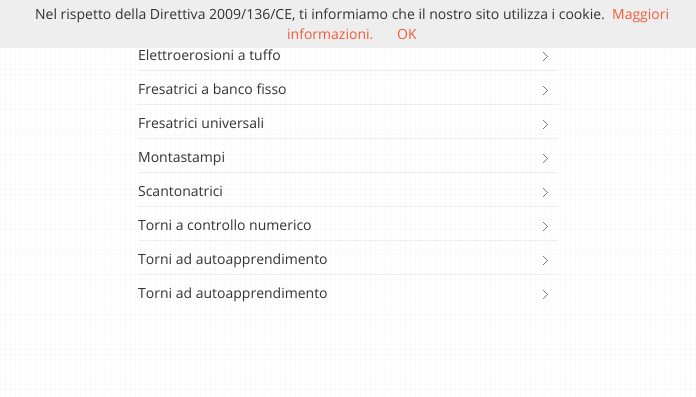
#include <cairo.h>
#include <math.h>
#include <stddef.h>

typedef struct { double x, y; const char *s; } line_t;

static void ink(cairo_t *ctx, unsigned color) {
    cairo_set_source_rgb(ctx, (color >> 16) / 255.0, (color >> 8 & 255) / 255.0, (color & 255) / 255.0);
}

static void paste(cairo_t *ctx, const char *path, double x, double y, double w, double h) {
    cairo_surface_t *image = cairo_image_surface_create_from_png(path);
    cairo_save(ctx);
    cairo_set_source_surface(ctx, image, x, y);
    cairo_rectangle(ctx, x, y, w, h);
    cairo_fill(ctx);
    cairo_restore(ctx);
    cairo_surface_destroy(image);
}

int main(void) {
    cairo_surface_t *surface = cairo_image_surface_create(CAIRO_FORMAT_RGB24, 696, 397);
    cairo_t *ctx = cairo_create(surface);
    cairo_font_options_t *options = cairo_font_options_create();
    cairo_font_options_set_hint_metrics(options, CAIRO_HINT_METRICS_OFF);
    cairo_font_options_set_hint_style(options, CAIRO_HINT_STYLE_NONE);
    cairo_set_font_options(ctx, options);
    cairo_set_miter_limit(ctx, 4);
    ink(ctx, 0xFFFFFF);
    cairo_paint(ctx);
    ink(ctx, 0xEEEEEE);
    cairo_rectangle(ctx, 0, 0, 696, 48);
    cairo_fill(ctx);
    cairo_select_font_face(ctx, "Open Sans", CAIRO_FONT_SLANT_NORMAL, CAIRO_FONT_WEIGHT_NORMAL);
    cairo_set_font_size(ctx, 14);
    ink(ctx, 0x333333);
    cairo_move_to(ctx, 35, 19);
    cairo_show_text(ctx, "Nel rispetto della Direttiva 2009/136/CE, ti informiamo che il nostro sito utilizza i cookie.");
    ink(ctx, 0xF15A38);
    {
        static const line_t items[] = {
            {612, 19, "Maggiori"},
            {287, 39, "informazioni."},
            {397, 39, "OK"},
        };
        for (size_t i = 0; i < sizeof items / sizeof *items; i++) {
            cairo_move_to(ctx, items[i].x, items[i].y);
            cairo_show_text(ctx, items[i].s);
        }
    }
    paste(ctx, "media/1.png", 0, 48, 696, 349);
    paste(ctx, "media/2.png", 543, 52, 5, 9);
    ink(ctx, 0x333333);
    cairo_move_to(ctx, 138, 60);
    cairo_show_text(ctx, "Elettroerosioni a tuffo");
    ink(ctx, 0xEDEDED);
    cairo_rectangle(ctx, 138, 70, 420, 1);
    cairo_fill(ctx);
    paste(ctx, "media/3.png", 543, 86, 5, 9);
    ink(ctx, 0x333333);
    cairo_move_to(ctx, 138, 94);
    cairo_show_text(ctx, "Fresatrici a banco fisso");
    ink(ctx, 0xEDEDED);
    cairo_rectangle(ctx, 138, 104, 420, 1);
    cairo_fill(ctx);
    paste(ctx, "media/4.png", 543, 120, 5, 9);
    ink(ctx, 0x333333);
    cairo_move_to(ctx, 138, 128);
    cairo_show_text(ctx, "Fresatrici universali");
    ink(ctx, 0xEDEDED);
    cairo_rectangle(ctx, 138, 138, 420, 1);
    cairo_fill(ctx);
    paste(ctx, "media/5.png", 543, 154, 5, 9);
    ink(ctx, 0x333333);
    cairo_move_to(ctx, 138, 162);
    cairo_show_text(ctx, "Montastampi");
    ink(ctx, 0xEDEDED);
    cairo_rectangle(ctx, 138, 172, 420, 1);
    cairo_fill(ctx);
    paste(ctx, "media/6.png", 543, 188, 5, 9);
    ink(ctx, 0x333333);
    cairo_move_to(ctx, 138, 196);
    cairo_show_text(ctx, "Scantonatrici");
    ink(ctx, 0xEDEDED);
    cairo_rectangle(ctx, 138, 206, 420, 1);
    cairo_fill(ctx);
    paste(ctx, "media/7.png", 543, 222, 5, 9);
    ink(ctx, 0x333333);
    cairo_move_to(ctx, 138, 230);
    cairo_show_text(ctx, "Torni a controllo numerico");
    ink(ctx, 0xEDEDED);
    cairo_rectangle(ctx, 138, 240, 420, 1);
    cairo_fill(ctx);
    paste(ctx, "media/3.png", 543, 256, 5, 9);
    ink(ctx, 0x333333);
    cairo_move_to(ctx, 138, 264);
    cairo_show_text(ctx, "Torni ad autoapprendimento");
    ink(ctx, 0xEDEDED);
    cairo_rectangle(ctx, 138, 274, 420, 1);
    cairo_fill(ctx);
    paste(ctx, "media/4.png", 543, 290, 5, 9);
    ink(ctx, 0x333333);
    cairo_move_to(ctx, 138, 298);
    cairo_show_text(ctx, "Torni ad autoapprendimento");
    cairo_surface_write_to_png(surface, "image.png");
    cairo_font_options_destroy(options);
    cairo_destroy(ctx);
    cairo_surface_destroy(surface);
    return 0;
}
